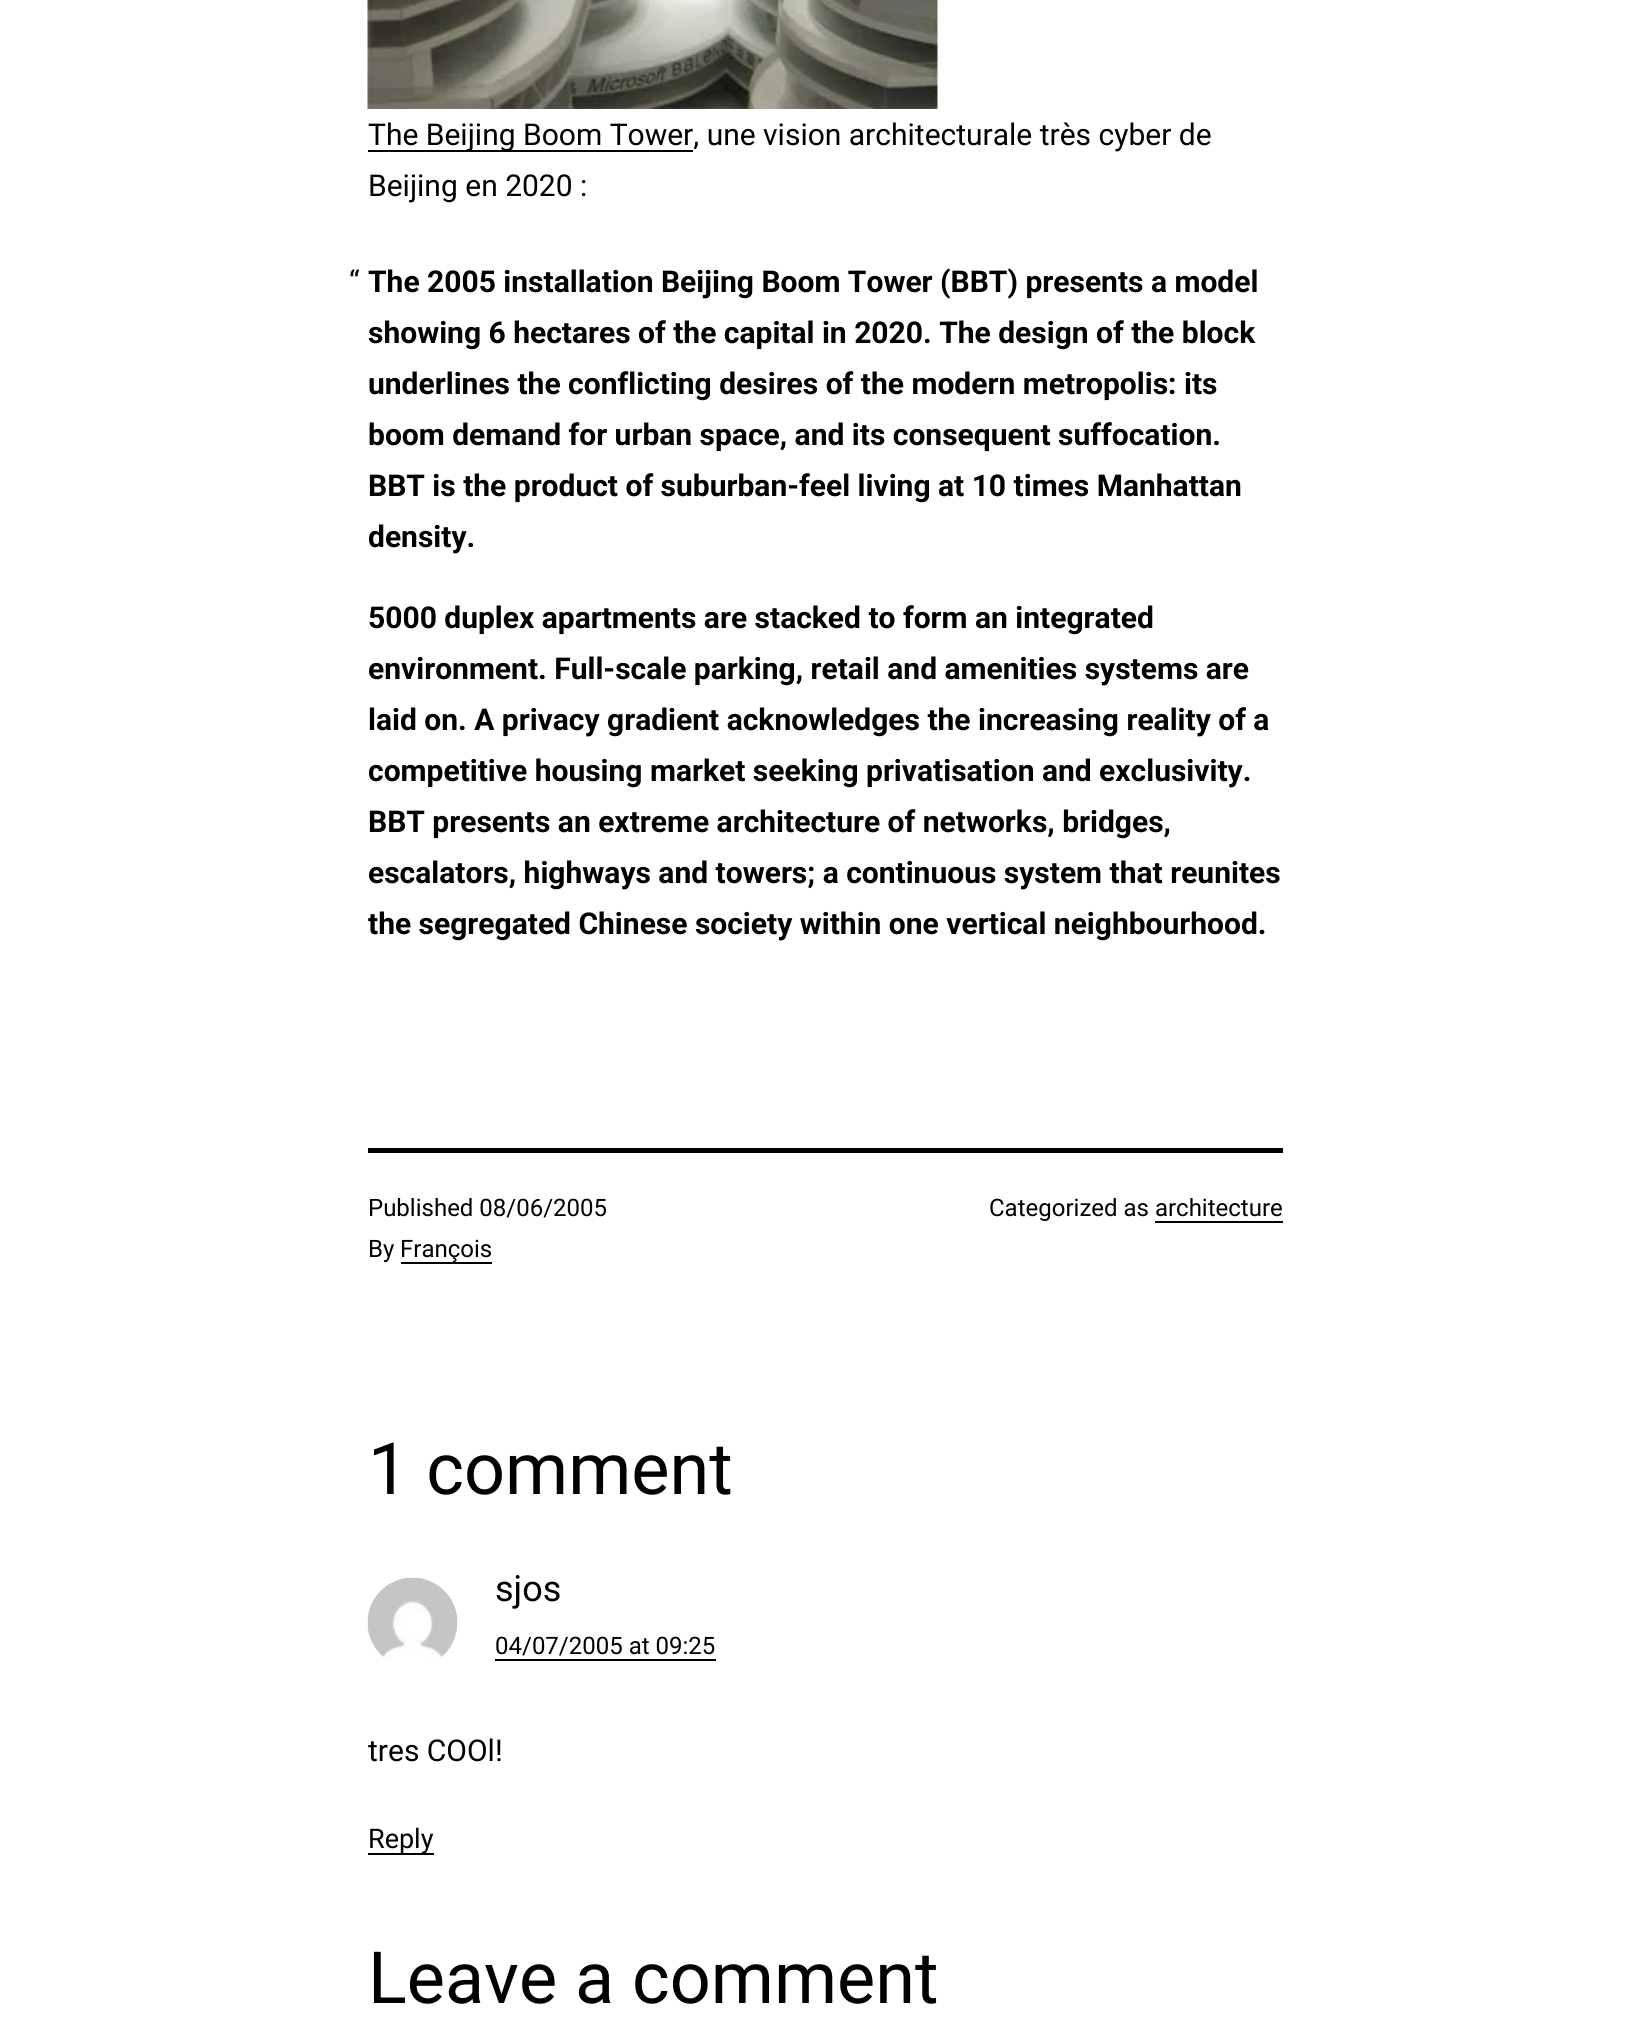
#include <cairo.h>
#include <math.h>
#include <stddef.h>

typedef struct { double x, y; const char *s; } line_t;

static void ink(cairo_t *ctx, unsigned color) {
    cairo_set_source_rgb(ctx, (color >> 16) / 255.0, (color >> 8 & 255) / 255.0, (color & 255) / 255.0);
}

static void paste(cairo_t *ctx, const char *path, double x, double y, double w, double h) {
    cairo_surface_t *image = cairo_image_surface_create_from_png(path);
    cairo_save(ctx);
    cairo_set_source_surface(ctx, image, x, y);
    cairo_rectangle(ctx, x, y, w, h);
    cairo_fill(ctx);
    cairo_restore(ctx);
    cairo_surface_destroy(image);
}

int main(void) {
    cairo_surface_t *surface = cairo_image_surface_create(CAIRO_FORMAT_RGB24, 1650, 2025);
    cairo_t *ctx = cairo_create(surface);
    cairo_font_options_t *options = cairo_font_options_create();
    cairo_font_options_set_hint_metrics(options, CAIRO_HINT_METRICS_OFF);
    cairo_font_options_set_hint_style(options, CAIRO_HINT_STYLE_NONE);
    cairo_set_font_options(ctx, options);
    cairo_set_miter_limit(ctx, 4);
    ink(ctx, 0xFFFFFF);
    cairo_paint(ctx);
    paste(ctx, "media/1.png", 367, 0, 571, 109);
    ink(ctx, 0x000000);
    cairo_rectangle(ctx, 368, 150, 325, 2);
    cairo_fill(ctx);
    cairo_select_font_face(ctx, "Roboto", CAIRO_FONT_SLANT_NORMAL, CAIRO_FONT_WEIGHT_NORMAL);
    cairo_set_font_size(ctx, 30);
    {
        static const line_t items[] = {
            {368, 145, "The Beijing Boom Tower, une vision architecturale très cyber de"},
            {368, 196, "Beijing en 2020 :"},
            {349, 292, "“"},
        };
        for (size_t i = 0; i < sizeof items / sizeof *items; i++) {
            cairo_move_to(ctx, items[i].x, items[i].y);
            cairo_show_text(ctx, items[i].s);
        }
    }
    cairo_select_font_face(ctx, "Roboto", CAIRO_FONT_SLANT_NORMAL, CAIRO_FONT_WEIGHT_BOLD);
    {
        static const line_t items[] = {
            {368, 292, "The 2005 installation Beijing Boom Tower (BBT) presents a model"},
            {368, 343, "showing 6 hectares of the capital in 2020. The design of the block"},
            {368, 394, "underlines the conflicting desires of the modern metropolis: its"},
            {368, 445, "boom demand for urban space, and its consequent suffocation."},
            {368, 496, "BBT is the product of suburban-feel living at 10 times Manhattan"},
            {368, 547, "density."},
            {368, 628, "5000 duplex apartments are stacked to form an integrated"},
            {368, 679, "environment. Full-scale parking, retail and amenities systems are"},
            {368, 730, "laid on. A privacy gradient acknowledges the increasing reality of a"},
            {368, 781, "competitive housing market seeking privatisation and exclusivity."},
            {368, 832, "BBT presents an extreme architecture of networks, bridges,"},
            {368, 883, "escalators, highways and towers; a continuous system that reunites"},
            {368, 934, "the segregated Chinese society within one vertical neighbourhood."},
        };
        for (size_t i = 0; i < sizeof items / sizeof *items; i++) {
            cairo_move_to(ctx, items[i].x, items[i].y);
            cairo_show_text(ctx, items[i].s);
        }
    }
    cairo_rectangle(ctx, 368, 1148, 915, 5);
    cairo_fill(ctx);
    cairo_select_font_face(ctx, "Roboto", CAIRO_FONT_SLANT_NORMAL, CAIRO_FONT_WEIGHT_NORMAL);
    cairo_set_font_size(ctx, 24);
    cairo_move_to(ctx, 368, 1216);
    cairo_show_text(ctx, "Published 08/06/2005");
    cairo_move_to(ctx, 368, 1257);
    cairo_show_text(ctx, "By");
    cairo_rectangle(ctx, 401, 1262, 91, 2);
    cairo_fill(ctx);
    cairo_move_to(ctx, 400, 1257);
    cairo_show_text(ctx, "François");
    cairo_move_to(ctx, 989, 1216);
    cairo_show_text(ctx, "Categorized as architecture");
    cairo_rectangle(ctx, 1155, 1221, 128, 2);
    cairo_fill(ctx);
    cairo_set_font_size(ctx, 72);
    cairo_move_to(ctx, 368, 1494);
    cairo_show_text(ctx, "1 comment");
    paste(ctx, "media/2.png", 367, 1577, 91, 83);
    cairo_set_font_size(ctx, 36);
    cairo_move_to(ctx, 495, 1601);
    cairo_show_text(ctx, "sjos");
    cairo_set_font_size(ctx, 24);
    cairo_move_to(ctx, 495, 1654);
    cairo_show_text(ctx, "04/07/2005 at 09:25");
    cairo_rectangle(ctx, 495, 1659, 221, 2);
    cairo_fill(ctx);
    cairo_set_font_size(ctx, 30);
    cairo_move_to(ctx, 368, 1761);
    cairo_show_text(ctx, "tres COOl!");
    cairo_rectangle(ctx, 368, 1853, 66, 2);
    cairo_fill(ctx);
    cairo_set_font_size(ctx, 27);
    cairo_move_to(ctx, 368, 1848);
    cairo_show_text(ctx, "Reply");
    cairo_set_font_size(ctx, 72);
    cairo_move_to(ctx, 368, 2003);
    cairo_show_text(ctx, "Leave a comment");
    cairo_surface_write_to_png(surface, "image.png");
    cairo_font_options_destroy(options);
    cairo_destroy(ctx);
    cairo_surface_destroy(surface);
    return 0;
}
